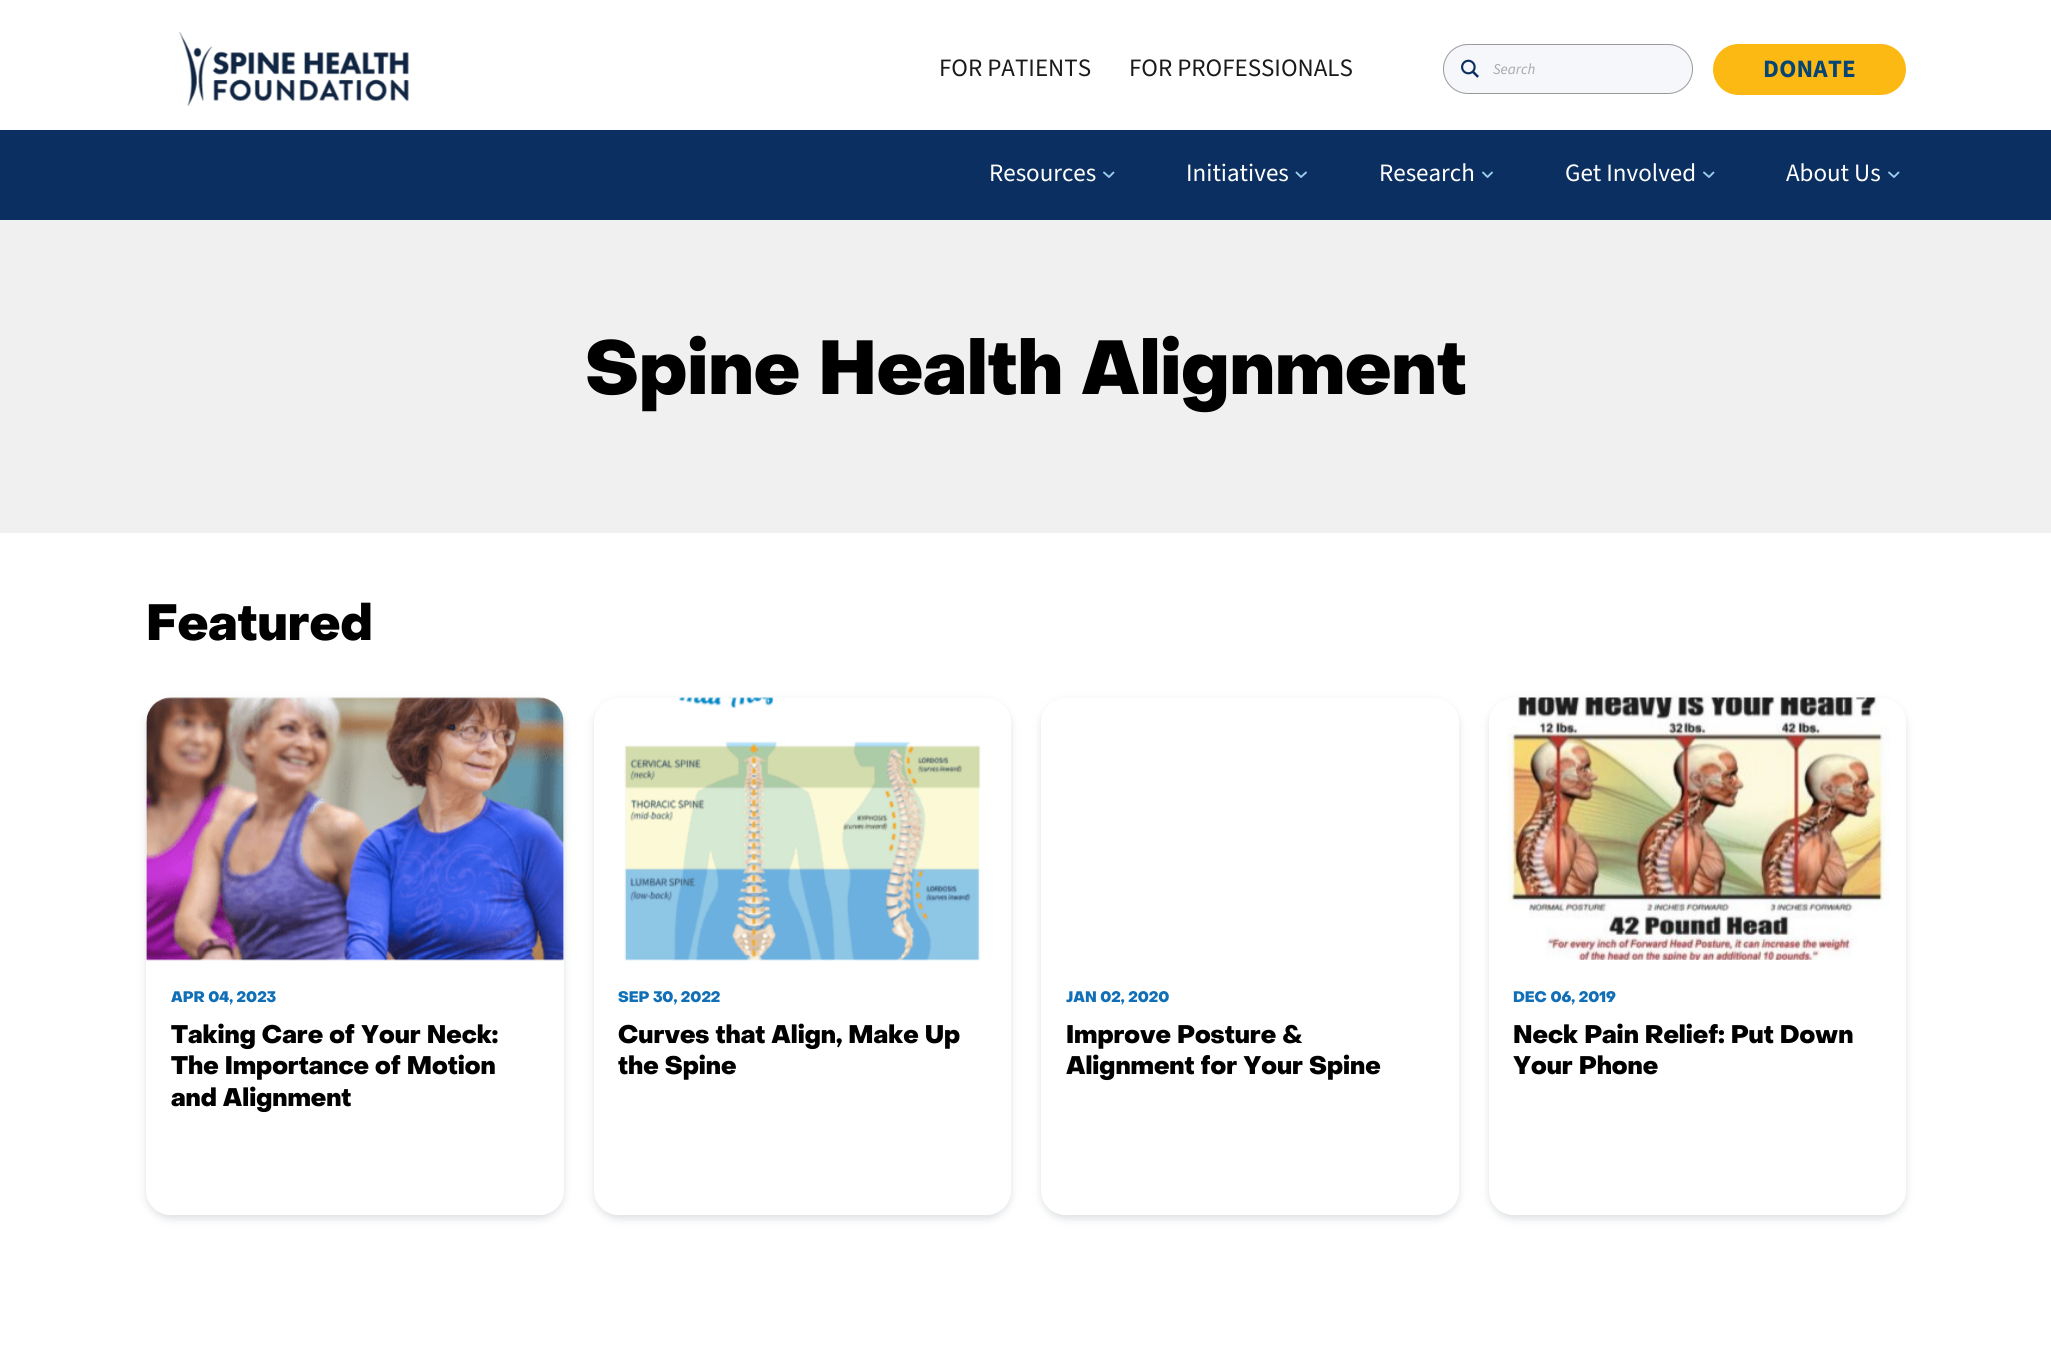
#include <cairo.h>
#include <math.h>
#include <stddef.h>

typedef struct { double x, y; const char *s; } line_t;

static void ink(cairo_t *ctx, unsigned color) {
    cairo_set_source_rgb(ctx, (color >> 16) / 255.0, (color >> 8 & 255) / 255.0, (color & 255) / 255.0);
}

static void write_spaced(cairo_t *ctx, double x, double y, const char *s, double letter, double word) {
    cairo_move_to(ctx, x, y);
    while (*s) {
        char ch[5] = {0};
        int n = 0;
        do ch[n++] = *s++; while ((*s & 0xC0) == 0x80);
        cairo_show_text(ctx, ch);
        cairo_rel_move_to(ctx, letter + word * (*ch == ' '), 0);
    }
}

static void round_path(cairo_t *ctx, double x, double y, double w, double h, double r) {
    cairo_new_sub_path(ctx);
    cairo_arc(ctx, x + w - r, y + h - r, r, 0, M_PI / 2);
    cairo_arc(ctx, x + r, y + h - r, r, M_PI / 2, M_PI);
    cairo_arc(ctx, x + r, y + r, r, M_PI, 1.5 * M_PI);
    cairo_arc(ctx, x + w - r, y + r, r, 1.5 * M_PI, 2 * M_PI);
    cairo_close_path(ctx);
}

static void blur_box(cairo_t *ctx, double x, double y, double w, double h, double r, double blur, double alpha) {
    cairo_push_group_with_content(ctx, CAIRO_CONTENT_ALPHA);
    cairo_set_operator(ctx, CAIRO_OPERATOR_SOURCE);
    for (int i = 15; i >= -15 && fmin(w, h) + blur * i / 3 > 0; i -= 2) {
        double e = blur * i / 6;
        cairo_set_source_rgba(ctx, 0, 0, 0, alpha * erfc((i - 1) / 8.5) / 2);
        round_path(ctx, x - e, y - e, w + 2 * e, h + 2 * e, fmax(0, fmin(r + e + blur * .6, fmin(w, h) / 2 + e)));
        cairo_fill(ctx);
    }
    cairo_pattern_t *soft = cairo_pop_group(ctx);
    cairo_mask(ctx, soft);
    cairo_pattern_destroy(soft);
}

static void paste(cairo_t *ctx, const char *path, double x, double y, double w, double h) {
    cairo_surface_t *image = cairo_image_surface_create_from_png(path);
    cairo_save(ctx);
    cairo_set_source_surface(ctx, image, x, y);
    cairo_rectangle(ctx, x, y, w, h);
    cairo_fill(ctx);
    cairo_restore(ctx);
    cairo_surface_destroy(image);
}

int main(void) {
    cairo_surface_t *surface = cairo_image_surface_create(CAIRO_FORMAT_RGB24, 2051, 1359);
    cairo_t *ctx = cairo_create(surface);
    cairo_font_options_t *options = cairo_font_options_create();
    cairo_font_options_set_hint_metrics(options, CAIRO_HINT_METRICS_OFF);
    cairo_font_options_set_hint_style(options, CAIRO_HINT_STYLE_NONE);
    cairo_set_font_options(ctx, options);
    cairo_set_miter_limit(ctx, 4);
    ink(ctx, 0xFFFFFF);
    cairo_paint(ctx);
    paste(ctx, "media/1.png", 178, 31, 231, 75);
    cairo_select_font_face(ctx, "Source Sans 3", CAIRO_FONT_SLANT_NORMAL, CAIRO_FONT_WEIGHT_NORMAL);
    cairo_set_font_size(ctx, 25);
    ink(ctx, 0x1A1A1A);
    cairo_move_to(ctx, 939, 76);
    cairo_show_text(ctx, "FOR PATIENTS");
    cairo_move_to(ctx, 1129, 76);
    cairo_show_text(ctx, "FOR PROFESSIONALS");
    ink(ctx, 0xF5F7FA);
    round_path(ctx, 1443.5, 44.5, 249, 49, 24.5);
    cairo_fill_preserve(ctx);
    ink(ctx, 0x9A9A9A);
    cairo_set_line_width(ctx, 1);
    cairo_stroke(ctx);
    paste(ctx, "media/2.png", 1461, 59, 18, 19);
    cairo_select_font_face(ctx, "Source Sans 3", CAIRO_FONT_SLANT_ITALIC, CAIRO_FONT_WEIGHT_NORMAL);
    cairo_set_font_size(ctx, 15);
    ink(ctx, 0xA8A8A8);
    cairo_move_to(ctx, 1493, 74);
    cairo_show_text(ctx, "Search");
    ink(ctx, 0xFDB913);
    round_path(ctx, 1713, 44, 193, 51, 25.5);
    cairo_fill(ctx);
    cairo_select_font_face(ctx, "Source Sans 3", CAIRO_FONT_SLANT_NORMAL, CAIRO_FONT_WEIGHT_BOLD);
    cairo_set_font_size(ctx, 25);
    ink(ctx, 0x064473);
    write_spaced(ctx, 1763, 77, "DONATE", 0.25, 0);
    ink(ctx, 0x0B2F60);
    cairo_rectangle(ctx, 0, 130, 2051, 90);
    cairo_fill(ctx);
    cairo_select_font_face(ctx, "Source Sans 3", CAIRO_FONT_SLANT_NORMAL, CAIRO_FONT_WEIGHT_NORMAL);
    ink(ctx, 0xFFFFFF);
    cairo_move_to(ctx, 989, 181);
    cairo_show_text(ctx, "Resources");
    cairo_new_path(ctx);
    cairo_move_to(ctx, 1104, 172.5);
    cairo_line_to(ctx, 1109, 177);
    cairo_line_to(ctx, 1113.5, 172.5);
    ink(ctx, 0x9ACDED);
    cairo_set_line_width(ctx, 1.9);
    cairo_set_line_cap(ctx, CAIRO_LINE_CAP_ROUND);
    cairo_set_line_join(ctx, CAIRO_LINE_JOIN_ROUND);
    cairo_stroke(ctx);
    ink(ctx, 0xFFFFFF);
    cairo_move_to(ctx, 1186, 181);
    cairo_show_text(ctx, "Initiatives");
    cairo_new_path(ctx);
    cairo_move_to(ctx, 1296.5, 172.5);
    cairo_line_to(ctx, 1301, 177);
    cairo_line_to(ctx, 1306, 172.5);
    ink(ctx, 0x9ACDED);
    cairo_stroke(ctx);
    ink(ctx, 0xFFFFFF);
    cairo_move_to(ctx, 1379, 181);
    cairo_show_text(ctx, "Research");
    cairo_new_path(ctx);
    cairo_move_to(ctx, 1483, 172.5);
    cairo_line_to(ctx, 1487.5, 177);
    cairo_line_to(ctx, 1492, 172.5);
    ink(ctx, 0x9ACDED);
    cairo_stroke(ctx);
    ink(ctx, 0xFFFFFF);
    cairo_move_to(ctx, 1565, 181);
    cairo_show_text(ctx, "Get Involved");
    cairo_new_path(ctx);
    cairo_move_to(ctx, 1704, 172.5);
    cairo_line_to(ctx, 1709, 177);
    cairo_line_to(ctx, 1713.5, 172.5);
    ink(ctx, 0x9ACDED);
    cairo_stroke(ctx);
    ink(ctx, 0xFFFFFF);
    cairo_move_to(ctx, 1786, 181);
    cairo_show_text(ctx, "About Us");
    cairo_new_path(ctx);
    cairo_move_to(ctx, 1889, 172.5);
    cairo_line_to(ctx, 1894, 177);
    cairo_line_to(ctx, 1898.5, 172.5);
    ink(ctx, 0x9ACDED);
    cairo_stroke(ctx);
    ink(ctx, 0xF0F0F0);
    cairo_rectangle(ctx, 0, 220, 2051, 313);
    cairo_fill(ctx);
    cairo_select_font_face(ctx, "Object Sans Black", CAIRO_FONT_SLANT_NORMAL, CAIRO_FONT_WEIGHT_NORMAL);
    cairo_set_font_size(ctx, 75);
    ink(ctx, 0x000000);
    cairo_move_to(ctx, 585, 394);
    cairo_show_text(ctx, "Spine Health Alignment");
    cairo_set_font_size(ctx, 50);
    cairo_move_to(ctx, 146, 640);
    cairo_show_text(ctx, "Featured");
    cairo_save(ctx);
    cairo_set_fill_rule(ctx, CAIRO_FILL_RULE_EVEN_ODD);
    cairo_new_path(ctx);
    cairo_move_to(ctx, 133, 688);
    cairo_line_to(ctx, 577, 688);
    cairo_line_to(ctx, 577, 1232);
    cairo_line_to(ctx, 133, 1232);
    cairo_close_path(ctx);
    cairo_move_to(ctx, 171, 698);
    cairo_line_to(ctx, 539, 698);
    cairo_curve_to(ctx, 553, 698, 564, 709, 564, 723);
    cairo_line_to(ctx, 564, 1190);
    cairo_curve_to(ctx, 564, 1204, 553, 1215, 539, 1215);
    cairo_line_to(ctx, 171, 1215);
    cairo_curve_to(ctx, 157, 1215, 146, 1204, 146, 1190);
    cairo_line_to(ctx, 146, 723);
    cairo_curve_to(ctx, 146, 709, 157, 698, 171, 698);
    cairo_close_path(ctx);
    cairo_clip(ctx);
    ink(ctx, 0x5C6473);
    blur_box(ctx, 146, 701, 418, 518, 25, 4, 0.2);
    cairo_restore(ctx);
    paste(ctx, "media/3.png", 146, 697, 418, 264);
    cairo_set_font_size(ctx, 15);
    ink(ctx, 0x106FB6);
    cairo_move_to(ctx, 171, 1002);
    cairo_show_text(ctx, "APR 04, 2023");
    cairo_set_font_size(ctx, 25);
    ink(ctx, 0x000000);
    {
        static const line_t items[] = {
            {171, 1043, "Taking Care of Your Neck:"},
            {171, 1074, "The Importance of Motion"},
            {171, 1106, "and Alignment"},
        };
        for (size_t i = 0; i < sizeof items / sizeof *items; i++) {
            cairo_move_to(ctx, items[i].x, items[i].y);
            cairo_show_text(ctx, items[i].s);
        }
    }
    cairo_save(ctx);
    cairo_set_fill_rule(ctx, CAIRO_FILL_RULE_EVEN_ODD);
    cairo_new_path(ctx);
    cairo_move_to(ctx, 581, 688);
    cairo_line_to(ctx, 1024, 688);
    cairo_line_to(ctx, 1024, 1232);
    cairo_line_to(ctx, 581, 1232);
    cairo_close_path(ctx);
    cairo_move_to(ctx, 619, 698);
    cairo_line_to(ctx, 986, 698);
    cairo_curve_to(ctx, 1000, 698, 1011, 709, 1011, 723);
    cairo_line_to(ctx, 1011, 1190);
    cairo_curve_to(ctx, 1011, 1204, 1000, 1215, 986, 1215);
    cairo_line_to(ctx, 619, 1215);
    cairo_curve_to(ctx, 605, 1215, 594, 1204, 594, 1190);
    cairo_line_to(ctx, 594, 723);
    cairo_curve_to(ctx, 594, 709, 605, 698, 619, 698);
    cairo_close_path(ctx);
    cairo_clip(ctx);
    ink(ctx, 0x5C6473);
    blur_box(ctx, 594, 701, 417, 518, 25, 4, 0.2);
    cairo_restore(ctx);
    paste(ctx, "media/4.png", 624, 697, 357, 264);
    cairo_set_font_size(ctx, 15);
    ink(ctx, 0x106FB6);
    cairo_move_to(ctx, 618, 1002);
    cairo_show_text(ctx, "SEP 30, 2022");
    cairo_set_font_size(ctx, 25);
    ink(ctx, 0x000000);
    cairo_move_to(ctx, 618, 1043);
    cairo_show_text(ctx, "Curves that Align, Make Up");
    cairo_move_to(ctx, 618, 1074);
    cairo_show_text(ctx, "the Spine");
    cairo_save(ctx);
    cairo_set_fill_rule(ctx, CAIRO_FILL_RULE_EVEN_ODD);
    cairo_new_path(ctx);
    cairo_move_to(ctx, 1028, 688);
    cairo_line_to(ctx, 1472, 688);
    cairo_line_to(ctx, 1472, 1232);
    cairo_line_to(ctx, 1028, 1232);
    cairo_close_path(ctx);
    cairo_move_to(ctx, 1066, 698);
    cairo_line_to(ctx, 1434, 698);
    cairo_curve_to(ctx, 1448, 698, 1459, 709, 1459, 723);
    cairo_line_to(ctx, 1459, 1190);
    cairo_curve_to(ctx, 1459, 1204, 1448, 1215, 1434, 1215);
    cairo_line_to(ctx, 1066, 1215);
    cairo_curve_to(ctx, 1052, 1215, 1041, 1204, 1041, 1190);
    cairo_line_to(ctx, 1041, 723);
    cairo_curve_to(ctx, 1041, 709, 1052, 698, 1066, 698);
    cairo_close_path(ctx);
    cairo_clip(ctx);
    ink(ctx, 0x5C6473);
    blur_box(ctx, 1041, 701, 418, 518, 25, 4, 0.2);
    cairo_restore(ctx);
    cairo_set_font_size(ctx, 15);
    ink(ctx, 0x106FB6);
    cairo_move_to(ctx, 1066, 1002);
    cairo_show_text(ctx, "JAN 02, 2020");
    cairo_set_font_size(ctx, 25);
    ink(ctx, 0x000000);
    cairo_move_to(ctx, 1066, 1043);
    cairo_show_text(ctx, "Improve Posture &");
    cairo_move_to(ctx, 1066, 1074);
    cairo_show_text(ctx, "Alignment for Your Spine");
    cairo_save(ctx);
    cairo_set_fill_rule(ctx, CAIRO_FILL_RULE_EVEN_ODD);
    cairo_new_path(ctx);
    cairo_move_to(ctx, 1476, 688);
    cairo_line_to(ctx, 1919, 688);
    cairo_line_to(ctx, 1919, 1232);
    cairo_line_to(ctx, 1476, 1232);
    cairo_close_path(ctx);
    cairo_move_to(ctx, 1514, 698);
    cairo_line_to(ctx, 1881, 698);
    cairo_curve_to(ctx, 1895, 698, 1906, 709, 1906, 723);
    cairo_line_to(ctx, 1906, 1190);
    cairo_curve_to(ctx, 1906, 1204, 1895, 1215, 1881, 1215);
    cairo_line_to(ctx, 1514, 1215);
    cairo_curve_to(ctx, 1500, 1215, 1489, 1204, 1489, 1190);
    cairo_line_to(ctx, 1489, 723);
    cairo_curve_to(ctx, 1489, 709, 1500, 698, 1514, 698);
    cairo_close_path(ctx);
    cairo_clip(ctx);
    ink(ctx, 0x5C6473);
    blur_box(ctx, 1489, 701, 417, 518, 25, 4, 0.2);
    cairo_restore(ctx);
    paste(ctx, "media/5.png", 1507, 697, 383, 263);
    cairo_set_font_size(ctx, 15);
    ink(ctx, 0x106FB6);
    cairo_move_to(ctx, 1513, 1002);
    cairo_show_text(ctx, "DEC 06, 2019");
    cairo_set_font_size(ctx, 25);
    ink(ctx, 0x000000);
    cairo_move_to(ctx, 1513, 1043);
    cairo_show_text(ctx, "Neck Pain Relief: Put Down");
    cairo_move_to(ctx, 1513, 1074);
    cairo_show_text(ctx, "Your Phone");
    cairo_surface_write_to_png(surface, "image.png");
    cairo_font_options_destroy(options);
    cairo_destroy(ctx);
    cairo_surface_destroy(surface);
    return 0;
}
